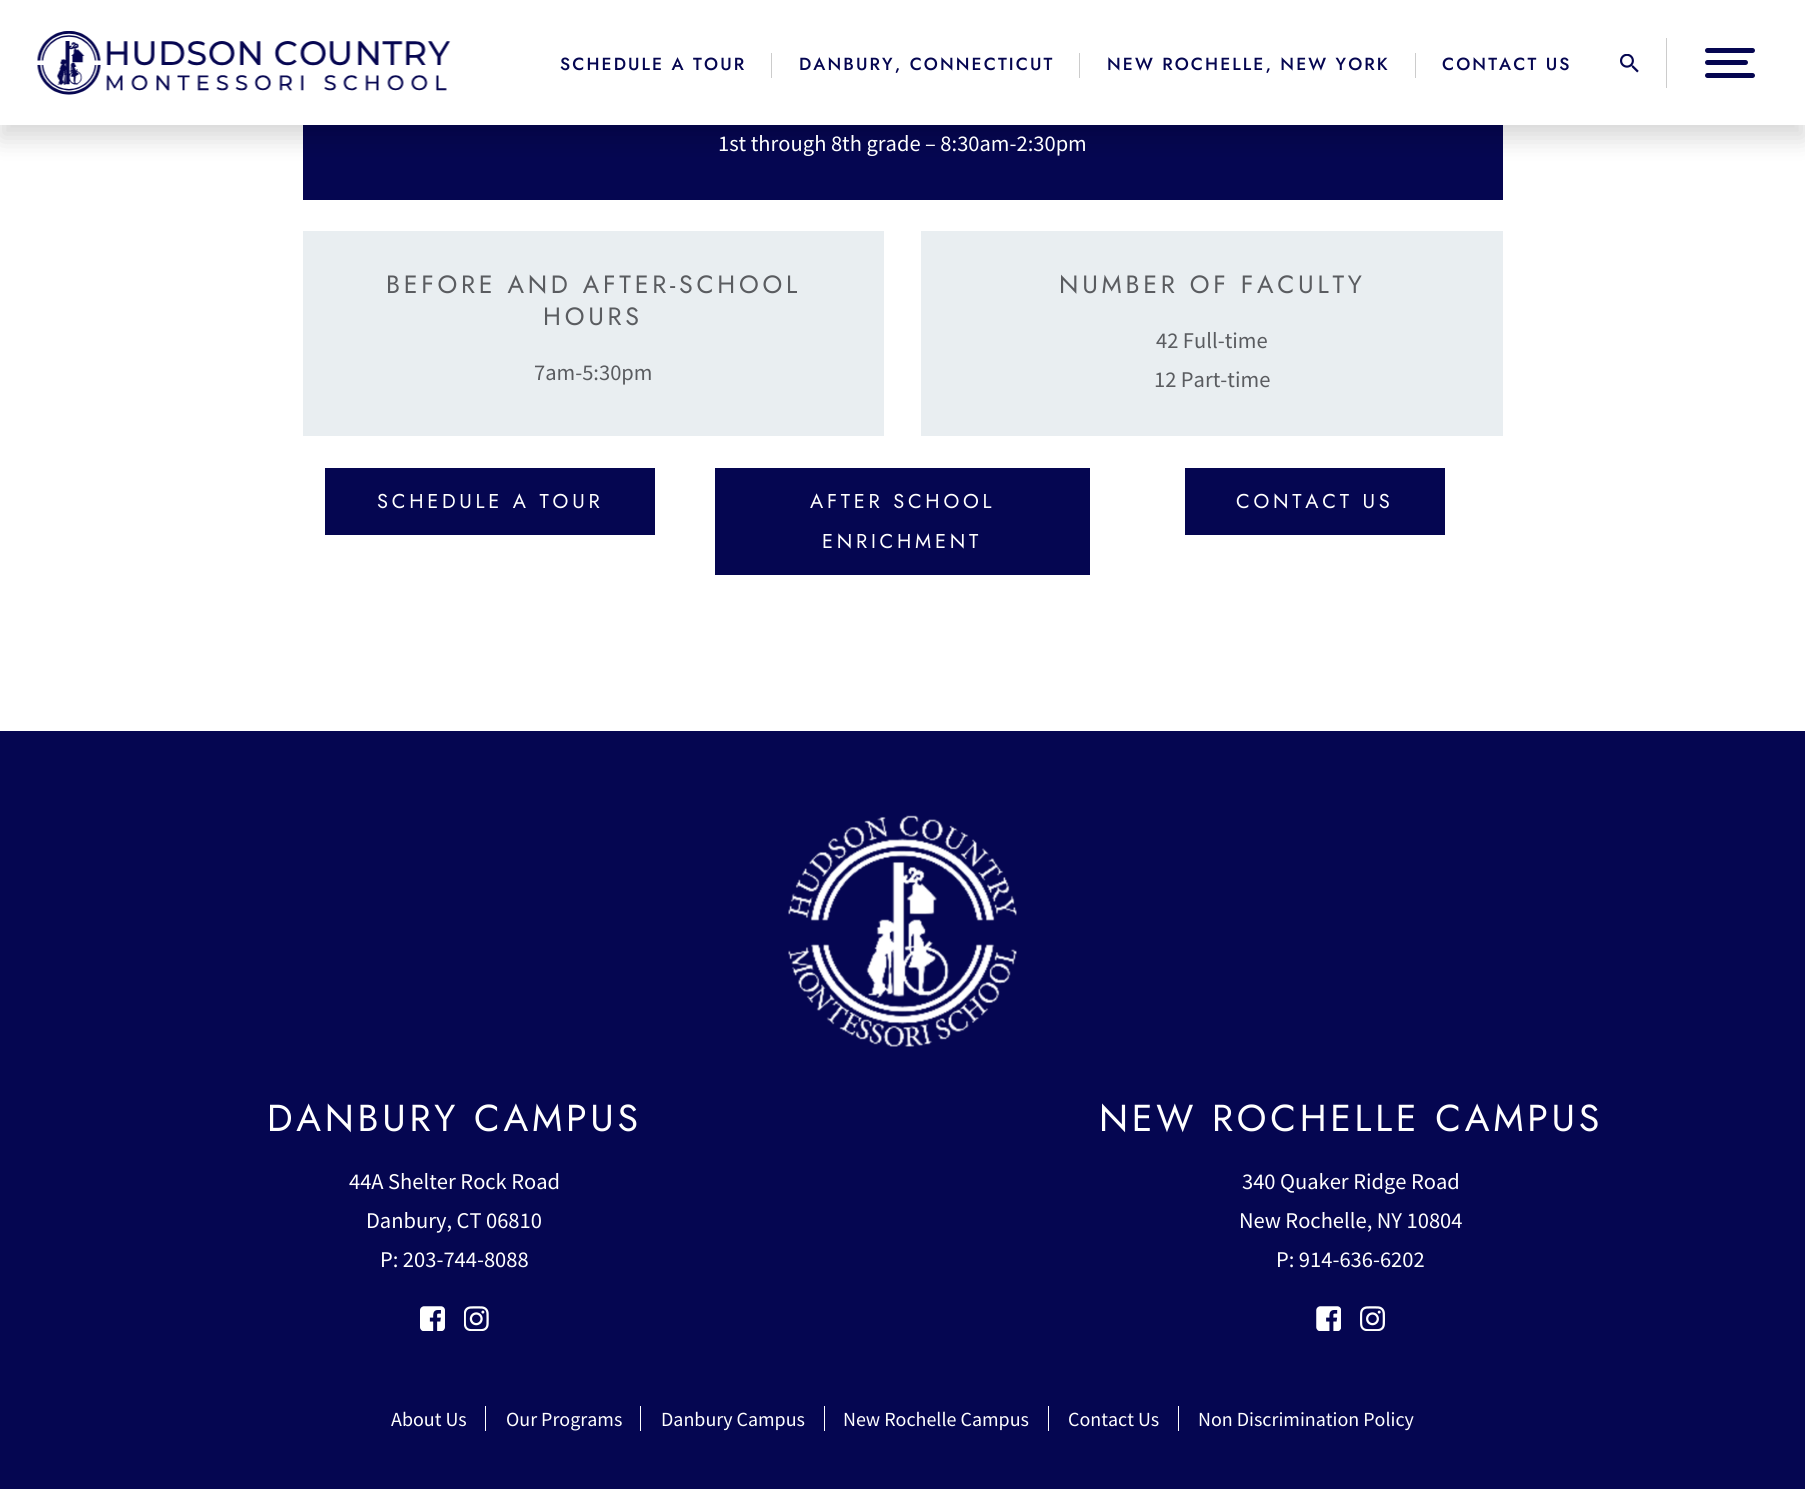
#include <cairo.h>
#include <math.h>
#include <stddef.h>

typedef struct { double x, y; const char *s; } line_t;

static void ink(cairo_t *ctx, unsigned color) {
    cairo_set_source_rgb(ctx, (color >> 16) / 255.0, (color >> 8 & 255) / 255.0, (color & 255) / 255.0);
}

static void write_spaced(cairo_t *ctx, double x, double y, const char *s, double letter, double word) {
    cairo_move_to(ctx, x, y);
    while (*s) {
        char ch[5] = {0};
        int n = 0;
        do ch[n++] = *s++; while ((*s & 0xC0) == 0x80);
        cairo_show_text(ctx, ch);
        cairo_rel_move_to(ctx, letter + word * (*ch == ' '), 0);
    }
}

static void round_path(cairo_t *ctx, double x, double y, double w, double h, double r) {
    cairo_new_sub_path(ctx);
    cairo_arc(ctx, x + w - r, y + h - r, r, 0, M_PI / 2);
    cairo_arc(ctx, x + r, y + h - r, r, M_PI / 2, M_PI);
    cairo_arc(ctx, x + r, y + r, r, M_PI, 1.5 * M_PI);
    cairo_arc(ctx, x + w - r, y + r, r, 1.5 * M_PI, 2 * M_PI);
    cairo_close_path(ctx);
}

static void blur_box(cairo_t *ctx, double x, double y, double w, double h, double r, double blur, double alpha) {
    cairo_push_group_with_content(ctx, CAIRO_CONTENT_ALPHA);
    cairo_set_operator(ctx, CAIRO_OPERATOR_SOURCE);
    for (int i = 15; i >= -15 && fmin(w, h) + blur * i / 3 > 0; i -= 2) {
        double e = blur * i / 6;
        cairo_set_source_rgba(ctx, 0, 0, 0, alpha * erfc((i - 1) / 8.5) / 2);
        round_path(ctx, x - e, y - e, w + 2 * e, h + 2 * e, fmax(0, fmin(r + e + blur * .6, fmin(w, h) / 2 + e)));
        cairo_fill(ctx);
    }
    cairo_pattern_t *soft = cairo_pop_group(ctx);
    cairo_mask(ctx, soft);
    cairo_pattern_destroy(soft);
}

static void paste(cairo_t *ctx, const char *path, double x, double y, double w, double h) {
    cairo_surface_t *image = cairo_image_surface_create_from_png(path);
    cairo_save(ctx);
    cairo_set_source_surface(ctx, image, x, y);
    cairo_rectangle(ctx, x, y, w, h);
    cairo_fill(ctx);
    cairo_restore(ctx);
    cairo_surface_destroy(image);
}

int main(void) {
    cairo_surface_t *surface = cairo_image_surface_create(CAIRO_FORMAT_RGB24, 1805, 1489);
    cairo_t *ctx = cairo_create(surface);
    cairo_font_options_t *options = cairo_font_options_create();
    cairo_font_options_set_hint_metrics(options, CAIRO_HINT_METRICS_OFF);
    cairo_font_options_set_hint_style(options, CAIRO_HINT_STYLE_NONE);
    cairo_set_font_options(ctx, options);
    cairo_set_miter_limit(ctx, 4);
    ink(ctx, 0xFFFFFF);
    cairo_paint(ctx);
    ink(ctx, 0x050651);
    cairo_rectangle(ctx, 303, 125, 1200, 75);
    cairo_fill(ctx);
    ink(ctx, 0x000000);
    blur_box(ctx, 0, 13, 1805, 125, 0, 12.5, 0.16);
    ink(ctx, 0xFFFFFF);
    cairo_rectangle(ctx, 0, 0, 1805, 125);
    cairo_fill(ctx);
    paste(ctx, "media/1.png", 37, 31, 414, 64);
    cairo_select_font_face(ctx, "Jost Medium", CAIRO_FONT_SLANT_NORMAL, CAIRO_FONT_WEIGHT_NORMAL);
    cairo_set_font_size(ctx, 17.5);
    ink(ctx, 0x050651);
    write_spaced(ctx, 560, 70, "SCHEDULE A TOUR", 2.1, 0);
    ink(ctx, 0xCCCCCC);
    cairo_rectangle(ctx, 771, 53, 1, 25);
    cairo_fill(ctx);
    ink(ctx, 0x050651);
    write_spaced(ctx, 799, 70, "DANBURY, CONNECTICUT", 2.1, 0);
    ink(ctx, 0xCCCCCC);
    cairo_rectangle(ctx, 1079, 53, 1, 25);
    cairo_fill(ctx);
    ink(ctx, 0x050651);
    write_spaced(ctx, 1107, 70, "NEW ROCHELLE, NEW YORK", 2.1, 0);
    ink(ctx, 0xCCCCCC);
    cairo_rectangle(ctx, 1415, 53, 1, 25);
    cairo_fill(ctx);
    ink(ctx, 0x050651);
    write_spaced(ctx, 1442, 70, "CONTACT US", 2.1, 0);
    ink(ctx, 0xCCCCCC);
    cairo_rectangle(ctx, 1666, 38, 1, 50);
    cairo_fill(ctx);
    paste(ctx, "media/2.png", 1620, 54, 19, 19);
    ink(ctx, 0x050651);
    round_path(ctx, 1705, 48, 50, 5, 2.5);
    cairo_fill(ctx);
    round_path(ctx, 1705, 60, 43, 5, 2.5);
    cairo_fill(ctx);
    round_path(ctx, 1705, 73, 50, 5, 2.5);
    cairo_fill(ctx);
    cairo_select_font_face(ctx, "Source Sans Pro", CAIRO_FONT_SLANT_NORMAL, CAIRO_FONT_WEIGHT_NORMAL);
    cairo_set_font_size(ctx, 22.5);
    ink(ctx, 0xFFFFFF);
    cairo_move_to(ctx, 718, 151);
    cairo_show_text(ctx, "1st through 8th grade – 8:30am-2:30pm");
    ink(ctx, 0xE9EEF1);
    cairo_rectangle(ctx, 303, 231, 581, 205);
    cairo_fill(ctx);
    cairo_select_font_face(ctx, "Jost", CAIRO_FONT_SLANT_NORMAL, CAIRO_FONT_WEIGHT_NORMAL);
    cairo_set_font_size(ctx, 25);
    ink(ctx, 0x5A5C60);
    write_spaced(ctx, 386, 293, "BEFORE AND AFTER-SCHOOL", 3.75, 0);
    write_spaced(ctx, 543, 325, "HOURS", 3.75, 0);
    cairo_select_font_face(ctx, "Source Sans Pro", CAIRO_FONT_SLANT_NORMAL, CAIRO_FONT_WEIGHT_NORMAL);
    cairo_set_font_size(ctx, 22.5);
    cairo_move_to(ctx, 534, 380);
    cairo_show_text(ctx, "7am-5:30pm");
    ink(ctx, 0xE9EEF1);
    cairo_rectangle(ctx, 921, 231, 582, 205);
    cairo_fill(ctx);
    cairo_select_font_face(ctx, "Jost", CAIRO_FONT_SLANT_NORMAL, CAIRO_FONT_WEIGHT_NORMAL);
    cairo_set_font_size(ctx, 25);
    ink(ctx, 0x5A5C60);
    write_spaced(ctx, 1059, 293, "NUMBER OF FACULTY", 3.75, 0);
    cairo_select_font_face(ctx, "Source Sans Pro", CAIRO_FONT_SLANT_NORMAL, CAIRO_FONT_WEIGHT_NORMAL);
    cairo_set_font_size(ctx, 22.5);
    cairo_move_to(ctx, 1156, 348);
    cairo_show_text(ctx, "42 Full-time");
    cairo_move_to(ctx, 1154, 387);
    cairo_show_text(ctx, "12 Part-time");
    ink(ctx, 0x050651);
    cairo_rectangle(ctx, 325, 468, 330, 67);
    cairo_fill(ctx);
    cairo_select_font_face(ctx, "Jost", CAIRO_FONT_SLANT_NORMAL, CAIRO_FONT_WEIGHT_NORMAL);
    cairo_set_font_size(ctx, 20);
    ink(ctx, 0xFFFFFF);
    write_spaced(ctx, 377, 508, "SCHEDULE A TOUR", 3.75, 0);
    ink(ctx, 0x050651);
    cairo_rectangle(ctx, 715, 468, 375, 107);
    cairo_fill(ctx);
    ink(ctx, 0xFFFFFF);
    write_spaced(ctx, 810, 508, "AFTER SCHOOL", 3.75, 0);
    write_spaced(ctx, 822, 548, "ENRICHMENT", 3.75, 0);
    ink(ctx, 0x050651);
    cairo_rectangle(ctx, 1185, 468, 260, 67);
    cairo_fill(ctx);
    ink(ctx, 0xFFFFFF);
    write_spaced(ctx, 1236, 508, "CONTACT US", 3.75, 0);
    ink(ctx, 0x050651);
    cairo_rectangle(ctx, 0, 731, 1805, 758);
    cairo_fill(ctx);
    paste(ctx, "media/3.png", 788, 815, 229, 232);
    cairo_set_font_size(ctx, 37.5);
    ink(ctx, 0xFFFFFF);
    write_spaced(ctx, 267, 1131, "DANBURY CAMPUS", 3.75, 0);
    cairo_select_font_face(ctx, "Source Sans Pro", CAIRO_FONT_SLANT_NORMAL, CAIRO_FONT_WEIGHT_NORMAL);
    cairo_set_font_size(ctx, 22.5);
    {
        static const line_t items[] = {
            {349, 1189, "44A Shelter Rock Road"},
            {366, 1228, "Danbury, CT 06810"},
            {380, 1267, "P: 203-744-8088"},
        };
        for (size_t i = 0; i < sizeof items / sizeof *items; i++) {
            cairo_move_to(ctx, items[i].x, items[i].y);
            cairo_show_text(ctx, items[i].s);
        }
    }
    paste(ctx, "media/4.png", 420, 1306, 25, 25);
    paste(ctx, "media/5.png", 464, 1306, 25, 25);
    cairo_select_font_face(ctx, "Jost", CAIRO_FONT_SLANT_NORMAL, CAIRO_FONT_WEIGHT_NORMAL);
    cairo_set_font_size(ctx, 37.5);
    write_spaced(ctx, 1099, 1131, "NEW ROCHELLE CAMPUS", 3.75, 0);
    cairo_select_font_face(ctx, "Source Sans Pro", CAIRO_FONT_SLANT_NORMAL, CAIRO_FONT_WEIGHT_NORMAL);
    cairo_set_font_size(ctx, 22.5);
    {
        static const line_t items[] = {
            {1242, 1189, "340 Quaker Ridge Road"},
            {1239, 1228, "New Rochelle, NY 10804"},
            {1276, 1267, "P: 914-636-6202"},
        };
        for (size_t i = 0; i < sizeof items / sizeof *items; i++) {
            cairo_move_to(ctx, items[i].x, items[i].y);
            cairo_show_text(ctx, items[i].s);
        }
    }
    paste(ctx, "media/6.png", 1316, 1306, 25, 25);
    paste(ctx, "media/7.png", 1360, 1306, 25, 25);
    cairo_rectangle(ctx, 485, 1406, 1, 25);
    cairo_fill(ctx);
    cairo_set_font_size(ctx, 20);
    cairo_move_to(ctx, 391, 1426);
    cairo_show_text(ctx, "About Us");
    cairo_rectangle(ctx, 640, 1406, 1, 25);
    cairo_fill(ctx);
    cairo_move_to(ctx, 506, 1426);
    cairo_show_text(ctx, "Our Programs");
    cairo_rectangle(ctx, 824, 1406, 1, 25);
    cairo_fill(ctx);
    cairo_move_to(ctx, 661, 1426);
    cairo_show_text(ctx, "Danbury Campus");
    cairo_rectangle(ctx, 1048, 1406, 1, 25);
    cairo_fill(ctx);
    cairo_move_to(ctx, 843, 1426);
    cairo_show_text(ctx, "New Rochelle Campus");
    cairo_rectangle(ctx, 1178, 1406, 1, 25);
    cairo_fill(ctx);
    cairo_move_to(ctx, 1068, 1426);
    cairo_show_text(ctx, "Contact Us");
    cairo_move_to(ctx, 1198, 1426);
    cairo_show_text(ctx, "Non Discrimination Policy");
    cairo_surface_write_to_png(surface, "image.png");
    cairo_font_options_destroy(options);
    cairo_destroy(ctx);
    cairo_surface_destroy(surface);
    return 0;
}
